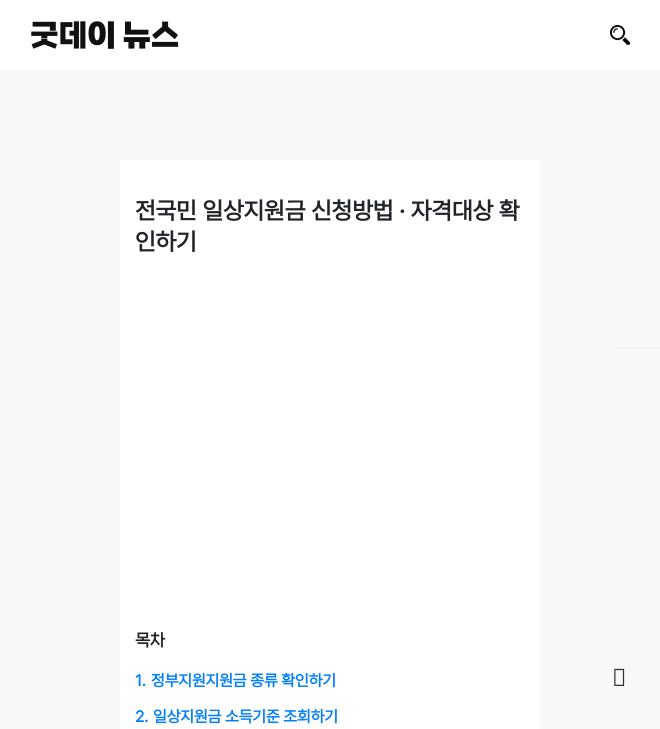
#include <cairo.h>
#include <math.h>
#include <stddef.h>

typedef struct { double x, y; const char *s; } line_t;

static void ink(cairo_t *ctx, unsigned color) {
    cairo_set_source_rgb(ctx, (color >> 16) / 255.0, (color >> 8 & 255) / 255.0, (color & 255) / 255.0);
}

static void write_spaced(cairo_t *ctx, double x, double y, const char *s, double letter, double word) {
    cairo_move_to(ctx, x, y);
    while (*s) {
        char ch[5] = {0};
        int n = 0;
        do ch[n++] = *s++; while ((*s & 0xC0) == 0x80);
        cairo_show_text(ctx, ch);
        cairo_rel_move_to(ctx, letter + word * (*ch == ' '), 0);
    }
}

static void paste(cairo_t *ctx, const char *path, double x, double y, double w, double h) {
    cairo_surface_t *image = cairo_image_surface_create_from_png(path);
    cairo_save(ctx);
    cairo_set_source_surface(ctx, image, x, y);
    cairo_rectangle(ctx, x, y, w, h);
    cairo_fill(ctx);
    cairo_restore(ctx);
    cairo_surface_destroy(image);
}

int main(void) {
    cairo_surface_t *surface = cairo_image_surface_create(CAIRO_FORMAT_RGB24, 660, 729);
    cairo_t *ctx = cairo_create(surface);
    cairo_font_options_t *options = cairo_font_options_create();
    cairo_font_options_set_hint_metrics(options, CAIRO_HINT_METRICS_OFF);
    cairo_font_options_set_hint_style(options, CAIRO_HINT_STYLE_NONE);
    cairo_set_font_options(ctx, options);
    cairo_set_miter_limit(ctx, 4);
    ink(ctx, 0xF7F8F9);
    cairo_paint(ctx);
    ink(ctx, 0xFFFFFF);
    cairo_rectangle(ctx, 0, 0, 660, 70);
    cairo_fill(ctx);
    cairo_select_font_face(ctx, "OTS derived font", CAIRO_FONT_SLANT_NORMAL, CAIRO_FONT_WEIGHT_BOLD);
    cairo_set_font_size(ctx, 30.5);
    ink(ctx, 0x111111);
    write_spaced(ctx, 30, 44, "굿데이 뉴스", -0.2, 0);
    paste(ctx, "media/1.png", 610, 25, 20, 20);
    ink(ctx, 0xFFFFFF);
    cairo_rectangle(ctx, 120, 160, 420, 569);
    cairo_fill(ctx);
    cairo_select_font_face(ctx, "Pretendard", CAIRO_FONT_SLANT_NORMAL, CAIRO_FONT_WEIGHT_BOLD);
    cairo_set_font_size(ctx, 24);
    ink(ctx, 0x212529);
    write_spaced(ctx, 135, 219, "전국민 일상지원금 신청방법 · 자격대상 확", -0.2, 0);
    write_spaced(ctx, 135, 250, "인하기", -0.2, 0);
    ink(ctx, 0xF1F1F1);
    cairo_rectangle(ctx, 615, 347, 45, 1);
    cairo_fill(ctx);
    cairo_select_font_face(ctx, "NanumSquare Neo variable", CAIRO_FONT_SLANT_NORMAL, CAIRO_FONT_WEIGHT_BOLD);
    cairo_set_font_size(ctx, 16);
    ink(ctx, 0x212529);
    write_spaced(ctx, 135, 645, "목차", -0.2, 0);
    cairo_select_font_face(ctx, "Pretendard", CAIRO_FONT_SLANT_NORMAL, CAIRO_FONT_WEIGHT_BOLD);
    ink(ctx, 0x007EFF);
    {
        static const line_t items[] = {
            {135, 686, "1."},
            {151, 686, "정부지원지원금 종류 확인하기"},
            {135, 722, "2."},
            {153, 722, "일상지원금 소득기준 조회하기"},
        };
        for (size_t i = 0; i < sizeof items / sizeof *items; i++) {
            write_spaced(ctx, items[i].x, items[i].y, items[i].s, -0.2, 0);
        }
    }
    paste(ctx, "media/2.png", 614, 668, 11, 18);
    cairo_surface_write_to_png(surface, "image.png");
    cairo_font_options_destroy(options);
    cairo_destroy(ctx);
    cairo_surface_destroy(surface);
    return 0;
}
